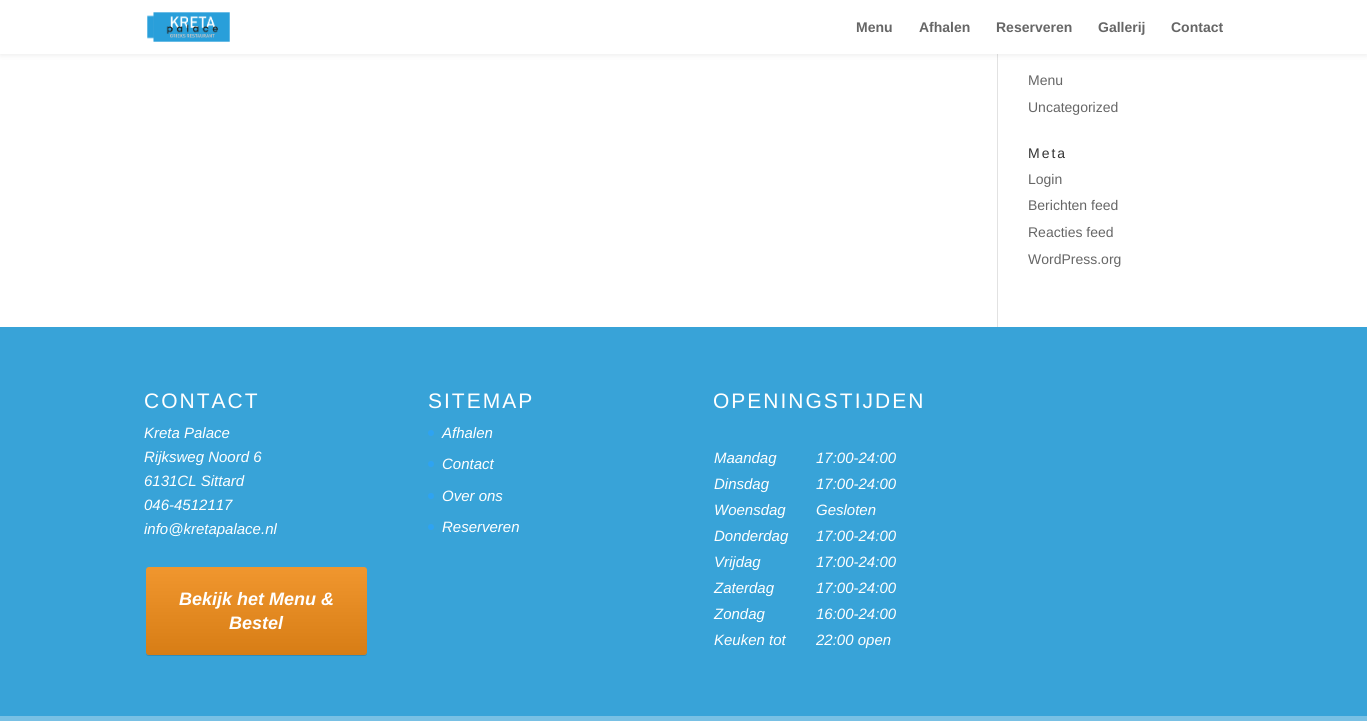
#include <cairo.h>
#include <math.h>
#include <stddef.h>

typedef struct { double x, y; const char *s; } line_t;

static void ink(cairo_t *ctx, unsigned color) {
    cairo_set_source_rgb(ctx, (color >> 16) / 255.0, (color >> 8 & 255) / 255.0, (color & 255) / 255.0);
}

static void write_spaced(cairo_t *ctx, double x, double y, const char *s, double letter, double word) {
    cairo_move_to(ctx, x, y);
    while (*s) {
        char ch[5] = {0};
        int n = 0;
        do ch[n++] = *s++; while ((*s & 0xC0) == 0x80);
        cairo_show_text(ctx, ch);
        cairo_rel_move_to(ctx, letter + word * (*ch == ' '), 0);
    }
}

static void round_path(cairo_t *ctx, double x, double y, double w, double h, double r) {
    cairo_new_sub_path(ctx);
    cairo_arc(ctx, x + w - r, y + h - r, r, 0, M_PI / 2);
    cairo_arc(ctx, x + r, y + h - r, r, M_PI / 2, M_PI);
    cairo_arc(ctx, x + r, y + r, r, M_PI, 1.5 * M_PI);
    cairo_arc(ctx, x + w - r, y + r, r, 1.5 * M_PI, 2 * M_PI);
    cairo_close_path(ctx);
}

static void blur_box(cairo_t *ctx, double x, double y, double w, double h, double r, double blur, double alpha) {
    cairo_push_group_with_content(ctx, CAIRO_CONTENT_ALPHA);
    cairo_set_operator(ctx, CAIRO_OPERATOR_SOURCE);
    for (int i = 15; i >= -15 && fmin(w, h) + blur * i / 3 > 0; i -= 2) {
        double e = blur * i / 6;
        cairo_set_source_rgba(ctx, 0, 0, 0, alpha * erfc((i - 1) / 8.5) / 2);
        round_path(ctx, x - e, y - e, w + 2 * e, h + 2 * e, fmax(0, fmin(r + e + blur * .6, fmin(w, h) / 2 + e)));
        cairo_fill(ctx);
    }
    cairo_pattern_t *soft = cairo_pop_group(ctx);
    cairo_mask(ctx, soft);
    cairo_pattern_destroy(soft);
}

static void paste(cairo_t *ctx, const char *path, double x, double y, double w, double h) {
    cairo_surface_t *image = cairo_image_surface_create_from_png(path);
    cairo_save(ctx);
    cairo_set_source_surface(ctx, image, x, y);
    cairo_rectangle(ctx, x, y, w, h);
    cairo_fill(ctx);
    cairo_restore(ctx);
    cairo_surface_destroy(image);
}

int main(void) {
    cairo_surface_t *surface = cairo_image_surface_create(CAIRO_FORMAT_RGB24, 1367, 721);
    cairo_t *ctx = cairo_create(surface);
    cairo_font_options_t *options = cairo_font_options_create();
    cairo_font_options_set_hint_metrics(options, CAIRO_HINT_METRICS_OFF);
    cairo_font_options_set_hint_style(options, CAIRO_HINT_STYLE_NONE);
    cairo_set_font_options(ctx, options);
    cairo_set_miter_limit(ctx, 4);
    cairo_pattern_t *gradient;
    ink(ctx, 0xFFFFFF);
    cairo_paint(ctx);
    ink(ctx, 0xE2E2E2);
    cairo_rectangle(ctx, 997, 54, 1, 273);
    cairo_fill(ctx);
    ink(ctx, 0x000000);
    blur_box(ctx, 0, 0, 1367, 54, 0, 3.5, 0.1);
    ink(ctx, 0xFFFFFF);
    cairo_rectangle(ctx, 0, 0, 1367, 54);
    cairo_fill(ctx);
    paste(ctx, "media/1.png", 147, 12, 83, 30);
    cairo_select_font_face(ctx, "Liberation Sans", CAIRO_FONT_SLANT_NORMAL, CAIRO_FONT_WEIGHT_BOLD);
    cairo_set_font_size(ctx, 14);
    ink(ctx, 0x666666);
    {
        static const line_t items[] = {
            {856, 32, "Menu"},
            {919, 32, "Afhalen"},
            {996, 32, "Reserveren"},
            {1098, 32, "Gallerij"},
            {1171, 32, "Contact"},
        };
        for (size_t i = 0; i < sizeof items / sizeof *items; i++) {
            cairo_move_to(ctx, items[i].x, items[i].y);
            cairo_show_text(ctx, items[i].s);
        }
    }
    cairo_select_font_face(ctx, "Liberation Sans", CAIRO_FONT_SLANT_NORMAL, CAIRO_FONT_WEIGHT_NORMAL);
    cairo_move_to(ctx, 1028, 85);
    cairo_show_text(ctx, "Menu");
    cairo_move_to(ctx, 1028, 112);
    cairo_show_text(ctx, "Uncategorized");
    ink(ctx, 0x333333);
    write_spaced(ctx, 1028, 158, "Meta", 2, 0);
    ink(ctx, 0x666666);
    {
        static const line_t items[] = {
            {1028, 184, "Login"},
            {1028, 210, "Berichten feed"},
            {1028, 237, "Reacties feed"},
            {1028, 264, "WordPress.org"},
        };
        for (size_t i = 0; i < sizeof items / sizeof *items; i++) {
            cairo_move_to(ctx, items[i].x, items[i].y);
            cairo_show_text(ctx, items[i].s);
        }
    }
    ink(ctx, 0x38A3D8);
    cairo_rectangle(ctx, 0, 327, 1367, 389);
    cairo_fill(ctx);
    cairo_set_font_size(ctx, 21);
    ink(ctx, 0xFFFFFF);
    write_spaced(ctx, 144, 408, "CONTACT", 2, 0);
    cairo_select_font_face(ctx, "Liberation Sans", CAIRO_FONT_SLANT_ITALIC, CAIRO_FONT_WEIGHT_NORMAL);
    cairo_set_font_size(ctx, 15);
    {
        static const line_t items[] = {
            {144, 438, "Kreta Palace"},
            {144, 462, "Rijksweg Noord 6"},
            {144, 486, "6131CL Sittard"},
            {144, 510, "046-4512117"},
            {144, 534, "info@kretapalace.nl"},
        };
        for (size_t i = 0; i < sizeof items / sizeof *items; i++) {
            cairo_move_to(ctx, items[i].x, items[i].y);
            cairo_show_text(ctx, items[i].s);
        }
    }
    ink(ctx, 0x308BB8);
    cairo_new_path(ctx);
    cairo_move_to(ctx, 146, 652);
    cairo_line_to(ctx, 146, 653);
    cairo_curve_to(ctx, 146, 655, 147, 656, 149, 656);
    cairo_line_to(ctx, 364, 656);
    cairo_curve_to(ctx, 366, 656, 367, 655, 367, 653);
    cairo_line_to(ctx, 367, 652);
    cairo_curve_to(ctx, 367, 654, 366, 655, 364, 655);
    cairo_line_to(ctx, 149, 655);
    cairo_curve_to(ctx, 147, 655, 146, 654, 146, 652);
    cairo_close_path(ctx);
    cairo_fill(ctx);
    ink(ctx, 0xEF8B17);
    round_path(ctx, 146, 567, 221, 88, 3);
    cairo_fill(ctx);
    gradient = cairo_pattern_create_linear(257, 655, 257, 567);
    cairo_pattern_add_color_stop_rgba(gradient, 0, 0, 0, 0, 0.1);
    cairo_pattern_add_color_stop_rgba(gradient, 1, 1, 1, 1, 0.1);
    cairo_set_source(ctx, gradient);
    cairo_pattern_destroy(gradient);
    round_path(ctx, 146, 567, 221, 88, 3);
    cairo_fill(ctx);
    cairo_select_font_face(ctx, "Liberation Sans", CAIRO_FONT_SLANT_ITALIC, CAIRO_FONT_WEIGHT_BOLD);
    cairo_set_font_size(ctx, 18);
    ink(ctx, 0xFFFFFF);
    cairo_move_to(ctx, 179, 605);
    cairo_show_text(ctx, "Bekijk het Menu &");
    cairo_move_to(ctx, 229, 629);
    cairo_show_text(ctx, "Bestel");
    cairo_select_font_face(ctx, "Liberation Sans", CAIRO_FONT_SLANT_NORMAL, CAIRO_FONT_WEIGHT_NORMAL);
    cairo_set_font_size(ctx, 21);
    write_spaced(ctx, 428, 408, "SITEMAP", 2, 0);
    ink(ctx, 0x2EA3F2);
    cairo_new_path(ctx);
    cairo_arc(ctx, 431, 433, 3, 0, 2 * M_PI);
    cairo_fill(ctx);
    cairo_select_font_face(ctx, "Liberation Sans", CAIRO_FONT_SLANT_ITALIC, CAIRO_FONT_WEIGHT_NORMAL);
    cairo_set_font_size(ctx, 15);
    ink(ctx, 0xFFFFFF);
    cairo_move_to(ctx, 442, 438);
    cairo_show_text(ctx, "Afhalen");
    ink(ctx, 0x2EA3F2);
    cairo_new_path(ctx);
    cairo_arc(ctx, 431, 464, 3, 0, 2 * M_PI);
    cairo_fill(ctx);
    ink(ctx, 0xFFFFFF);
    cairo_move_to(ctx, 442, 469);
    cairo_show_text(ctx, "Contact");
    ink(ctx, 0x2EA3F2);
    cairo_new_path(ctx);
    cairo_arc(ctx, 431, 496, 3, 0, 2 * M_PI);
    cairo_fill(ctx);
    ink(ctx, 0xFFFFFF);
    cairo_move_to(ctx, 442, 501);
    cairo_show_text(ctx, "Over ons");
    ink(ctx, 0x2EA3F2);
    cairo_new_path(ctx);
    cairo_arc(ctx, 431, 527, 3, 0, 2 * M_PI);
    cairo_fill(ctx);
    ink(ctx, 0xFFFFFF);
    cairo_move_to(ctx, 442, 532);
    cairo_show_text(ctx, "Reserveren");
    cairo_select_font_face(ctx, "Liberation Sans", CAIRO_FONT_SLANT_NORMAL, CAIRO_FONT_WEIGHT_NORMAL);
    cairo_set_font_size(ctx, 21);
    write_spaced(ctx, 713, 408, "OPENINGSTIJDEN", 2, 0);
    cairo_select_font_face(ctx, "Liberation Sans", CAIRO_FONT_SLANT_ITALIC, CAIRO_FONT_WEIGHT_NORMAL);
    cairo_set_font_size(ctx, 15);
    {
        static const line_t items[] = {
            {714, 463, "Maandag"},
            {816, 463, "17:00-24:00"},
            {714, 489, "Dinsdag"},
            {816, 489, "17:00-24:00"},
            {714, 515, "Woensdag"},
            {816, 515, "Gesloten"},
            {714, 541, "Donderdag"},
            {816, 541, "17:00-24:00"},
            {714, 567, "Vrijdag"},
            {816, 567, "17:00-24:00"},
            {714, 593, "Zaterdag"},
            {816, 593, "17:00-24:00"},
            {714, 619, "Zondag"},
            {816, 619, "16:00-24:00"},
            {714, 645, "Keuken tot"},
            {816, 645, "22:00 open"},
        };
        for (size_t i = 0; i < sizeof items / sizeof *items; i++) {
            cairo_move_to(ctx, items[i].x, items[i].y);
            cairo_show_text(ctx, items[i].s);
        }
    }
    ink(ctx, 0x78C0E4);
    cairo_rectangle(ctx, 0, 716, 1367, 5);
    cairo_fill(ctx);
    cairo_surface_write_to_png(surface, "image.png");
    cairo_font_options_destroy(options);
    cairo_destroy(ctx);
    cairo_surface_destroy(surface);
    return 0;
}
